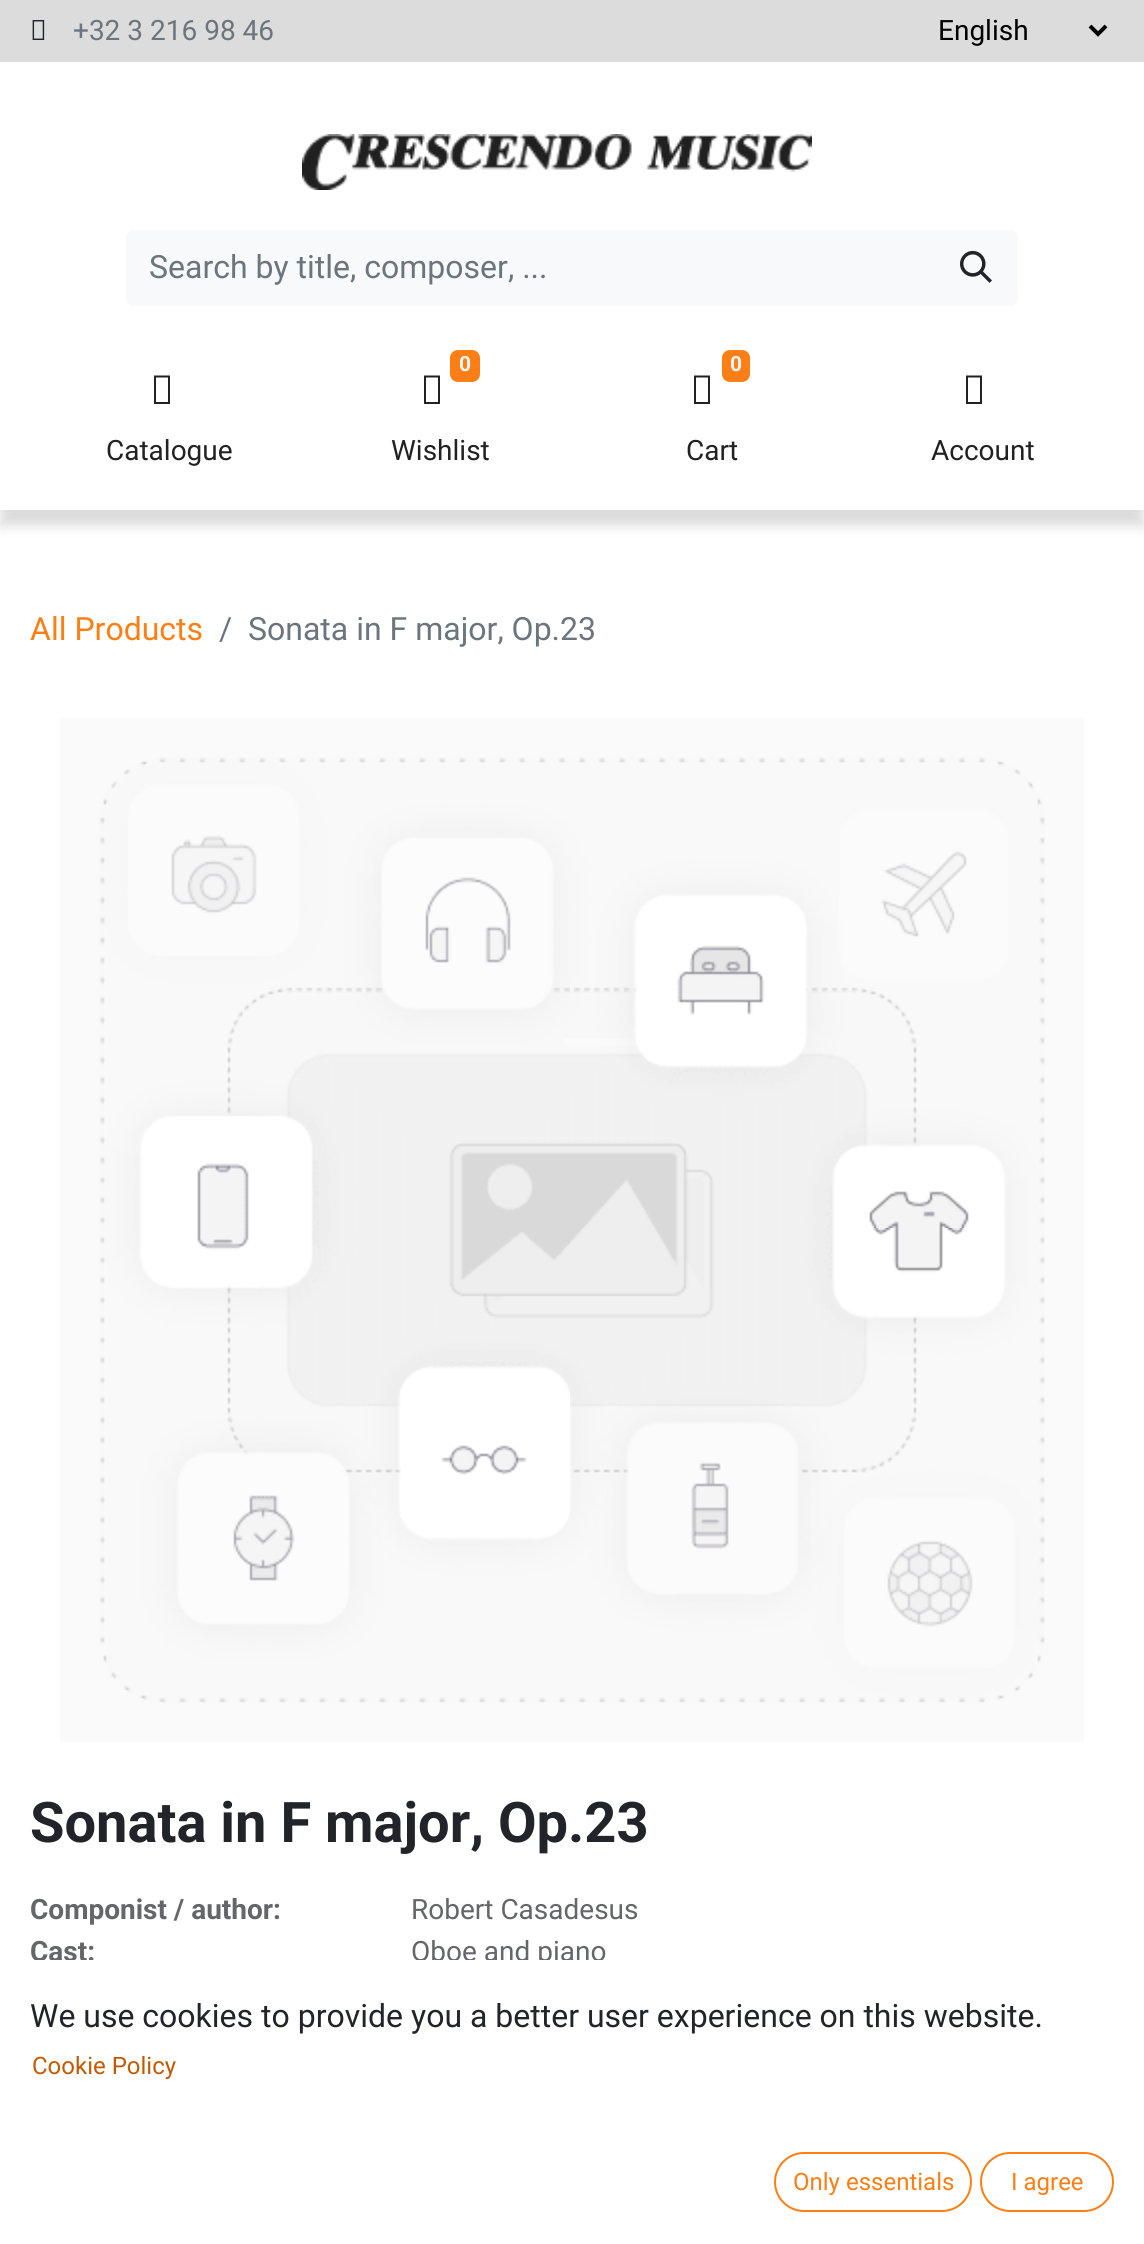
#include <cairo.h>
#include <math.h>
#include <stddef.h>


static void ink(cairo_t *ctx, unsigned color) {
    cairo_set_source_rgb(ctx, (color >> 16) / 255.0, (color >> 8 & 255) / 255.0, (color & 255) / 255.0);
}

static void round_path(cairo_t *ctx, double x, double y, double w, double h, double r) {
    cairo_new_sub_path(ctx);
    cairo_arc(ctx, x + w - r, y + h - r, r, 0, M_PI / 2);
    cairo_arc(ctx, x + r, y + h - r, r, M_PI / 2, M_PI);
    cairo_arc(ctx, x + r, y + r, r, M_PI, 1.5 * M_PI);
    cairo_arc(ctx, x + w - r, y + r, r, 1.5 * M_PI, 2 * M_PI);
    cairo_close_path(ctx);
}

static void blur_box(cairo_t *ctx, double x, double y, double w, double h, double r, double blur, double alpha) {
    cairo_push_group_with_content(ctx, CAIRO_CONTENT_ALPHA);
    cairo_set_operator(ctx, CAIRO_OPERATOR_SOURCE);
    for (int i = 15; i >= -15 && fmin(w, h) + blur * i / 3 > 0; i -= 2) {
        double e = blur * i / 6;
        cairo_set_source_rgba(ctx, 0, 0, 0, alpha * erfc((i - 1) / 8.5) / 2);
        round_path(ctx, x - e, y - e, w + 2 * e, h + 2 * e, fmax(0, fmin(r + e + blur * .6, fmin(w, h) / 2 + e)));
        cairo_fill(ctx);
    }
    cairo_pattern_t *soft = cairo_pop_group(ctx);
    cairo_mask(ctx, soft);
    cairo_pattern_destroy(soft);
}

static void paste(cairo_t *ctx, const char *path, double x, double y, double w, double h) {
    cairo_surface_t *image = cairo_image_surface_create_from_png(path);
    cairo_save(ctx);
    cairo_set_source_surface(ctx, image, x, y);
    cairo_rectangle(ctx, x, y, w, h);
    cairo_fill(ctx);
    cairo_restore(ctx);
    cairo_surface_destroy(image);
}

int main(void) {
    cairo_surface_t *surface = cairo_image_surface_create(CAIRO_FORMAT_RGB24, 1144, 2244);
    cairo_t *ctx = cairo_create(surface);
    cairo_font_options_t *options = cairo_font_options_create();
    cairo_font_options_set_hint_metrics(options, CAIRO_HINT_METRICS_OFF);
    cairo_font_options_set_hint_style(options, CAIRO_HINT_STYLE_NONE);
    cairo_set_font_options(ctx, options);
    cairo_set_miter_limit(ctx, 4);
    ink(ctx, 0xFFFFFF);
    cairo_paint(ctx);
    ink(ctx, 0xDCDCDC);
    cairo_rectangle(ctx, 0, 0, 1144, 62);
    cairo_fill(ctx);
    paste(ctx, "media/1.png", 32, 20, 13, 20);
    cairo_select_font_face(ctx, "Roboto", CAIRO_FONT_SLANT_NORMAL, CAIRO_FONT_WEIGHT_NORMAL);
    cairo_set_font_size(ctx, 28);
    ink(ctx, 0x6C757D);
    cairo_move_to(ctx, 73, 40);
    cairo_show_text(ctx, "+32 3 216 98 46");
    cairo_new_path(ctx);
    cairo_move_to(ctx, 1090, 26);
    cairo_line_to(ctx, 1098, 34);
    cairo_line_to(ctx, 1106, 26);
    ink(ctx, 0x000000);
    cairo_set_line_width(ctx, 4);
    cairo_stroke(ctx);
    cairo_move_to(ctx, 938, 40);
    cairo_show_text(ctx, "English");
    cairo_save(ctx);
    cairo_rectangle(ctx, 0, 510, 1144, 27);
    cairo_clip(ctx);
    ink(ctx, 0xC7C7C7);
    blur_box(ctx, 0, 78, 1144, 448, 0, 6, 0.62);
    cairo_restore(ctx);
    paste(ctx, "media/2.png", 302, 134, 510, 56);
    ink(ctx, 0xF8F9FA);
    cairo_new_path(ctx);
    cairo_move_to(ctx, 134, 230);
    cairo_line_to(ctx, 936, 230);
    cairo_line_to(ctx, 936, 306);
    cairo_line_to(ctx, 134, 306);
    cairo_curve_to(ctx, 129.5, 306, 126, 302.5, 126, 298);
    cairo_line_to(ctx, 126, 238);
    cairo_curve_to(ctx, 126, 233.5, 129.5, 230, 134, 230);
    cairo_close_path(ctx);
    cairo_fill(ctx);
    cairo_set_font_size(ctx, 32);
    ink(ctx, 0x6C757D);
    cairo_move_to(ctx, 149, 278);
    cairo_show_text(ctx, "Search by title, composer, ...");
    ink(ctx, 0xF8F9FA);
    cairo_new_path(ctx);
    cairo_move_to(ctx, 934, 230);
    cairo_line_to(ctx, 1010, 230);
    cairo_curve_to(ctx, 1014.5, 230, 1018, 233.5, 1018, 238);
    cairo_line_to(ctx, 1018, 298);
    cairo_curve_to(ctx, 1018, 302.5, 1014.5, 306, 1010, 306);
    cairo_line_to(ctx, 934, 306);
    cairo_close_path(ctx);
    cairo_fill(ctx);
    paste(ctx, "media/3.png", 960, 250, 32, 33);
    ink(ctx, 0x222222);
    cairo_new_path(ctx);
    cairo_move_to(ctx, 154, 404);
    cairo_line_to(ctx, 154, 375.5);
    cairo_line_to(ctx, 170, 375.5);
    cairo_line_to(ctx, 170, 404);
    cairo_close_path(ctx);
    cairo_move_to(ctx, 156, 402);
    cairo_line_to(ctx, 168, 402);
    cairo_line_to(ctx, 168, 377.5);
    cairo_line_to(ctx, 156, 377.5);
    cairo_close_path(ctx);
    cairo_fill(ctx);
    cairo_set_font_size(ctx, 28);
    cairo_move_to(ctx, 106, 460);
    cairo_show_text(ctx, "Catalogue");
    ink(ctx, 0xFD7E14);
    round_path(ctx, 450, 350, 30, 32, 8);
    cairo_fill(ctx);
    cairo_select_font_face(ctx, "Roboto", CAIRO_FONT_SLANT_NORMAL, CAIRO_FONT_WEIGHT_BOLD);
    cairo_set_font_size(ctx, 21);
    ink(ctx, 0xF8F9FA);
    cairo_move_to(ctx, 459, 371);
    cairo_show_text(ctx, "0");
    ink(ctx, 0x222222);
    cairo_new_path(ctx);
    cairo_move_to(ctx, 424, 404);
    cairo_line_to(ctx, 424, 375.5);
    cairo_line_to(ctx, 440, 375.5);
    cairo_line_to(ctx, 440, 404);
    cairo_close_path(ctx);
    cairo_move_to(ctx, 426, 402);
    cairo_line_to(ctx, 438, 402);
    cairo_line_to(ctx, 438, 377.5);
    cairo_line_to(ctx, 426, 377.5);
    cairo_close_path(ctx);
    cairo_fill(ctx);
    cairo_select_font_face(ctx, "Roboto", CAIRO_FONT_SLANT_NORMAL, CAIRO_FONT_WEIGHT_NORMAL);
    cairo_set_font_size(ctx, 28);
    cairo_move_to(ctx, 391, 460);
    cairo_show_text(ctx, "Wishlist");
    ink(ctx, 0xFD7E14);
    round_path(ctx, 722, 350, 28, 32, 8);
    cairo_fill(ctx);
    cairo_select_font_face(ctx, "Roboto", CAIRO_FONT_SLANT_NORMAL, CAIRO_FONT_WEIGHT_BOLD);
    cairo_set_font_size(ctx, 21);
    ink(ctx, 0xF8F9FA);
    cairo_move_to(ctx, 730, 371);
    cairo_show_text(ctx, "0");
    ink(ctx, 0x222222);
    cairo_new_path(ctx);
    cairo_move_to(ctx, 694, 404);
    cairo_line_to(ctx, 694, 375.5);
    cairo_line_to(ctx, 710, 375.5);
    cairo_line_to(ctx, 710, 404);
    cairo_close_path(ctx);
    cairo_move_to(ctx, 696, 402);
    cairo_line_to(ctx, 708, 402);
    cairo_line_to(ctx, 708, 377.5);
    cairo_line_to(ctx, 696, 377.5);
    cairo_close_path(ctx);
    cairo_fill(ctx);
    cairo_select_font_face(ctx, "Roboto", CAIRO_FONT_SLANT_NORMAL, CAIRO_FONT_WEIGHT_NORMAL);
    cairo_set_font_size(ctx, 28);
    cairo_move_to(ctx, 686, 460);
    cairo_show_text(ctx, "Cart");
    cairo_new_path(ctx);
    cairo_move_to(ctx, 966, 404);
    cairo_line_to(ctx, 966, 375.5);
    cairo_line_to(ctx, 982, 375.5);
    cairo_line_to(ctx, 982, 404);
    cairo_close_path(ctx);
    cairo_move_to(ctx, 968, 402);
    cairo_line_to(ctx, 980, 402);
    cairo_line_to(ctx, 980, 377.5);
    cairo_line_to(ctx, 968, 377.5);
    cairo_close_path(ctx);
    cairo_fill(ctx);
    cairo_move_to(ctx, 931, 460);
    cairo_show_text(ctx, "Account");
    cairo_set_font_size(ctx, 32);
    ink(ctx, 0xFD7E14);
    cairo_move_to(ctx, 30, 640);
    cairo_show_text(ctx, "All Products");
    ink(ctx, 0x6C757D);
    cairo_move_to(ctx, 219, 640);
    cairo_show_text(ctx, "/");
    cairo_move_to(ctx, 248, 640);
    cairo_show_text(ctx, "Sonata in F major, Op.23");
    paste(ctx, "media/4.png", 60, 718, 1024, 1024);
    cairo_select_font_face(ctx, "Roboto", CAIRO_FONT_SLANT_NORMAL, CAIRO_FONT_WEIGHT_BOLD);
    cairo_set_font_size(ctx, 56);
    ink(ctx, 0x212529);
    cairo_move_to(ctx, 30, 1842);
    cairo_show_text(ctx, "Sonata in F major, Op.23");
    cairo_set_font_size(ctx, 28);
    ink(ctx, 0x646669);
    cairo_move_to(ctx, 30, 1919);
    cairo_show_text(ctx, "Componist / author:");
    cairo_select_font_face(ctx, "Roboto", CAIRO_FONT_SLANT_NORMAL, CAIRO_FONT_WEIGHT_NORMAL);
    cairo_move_to(ctx, 411, 1919);
    cairo_show_text(ctx, "Robert Casadesus");
    cairo_select_font_face(ctx, "Roboto", CAIRO_FONT_SLANT_NORMAL, CAIRO_FONT_WEIGHT_BOLD);
    cairo_move_to(ctx, 30, 1961);
    cairo_show_text(ctx, "Cast:");
    cairo_select_font_face(ctx, "Roboto", CAIRO_FONT_SLANT_NORMAL, CAIRO_FONT_WEIGHT_NORMAL);
    cairo_move_to(ctx, 411, 1961);
    cairo_show_text(ctx, "Oboe and piano");
    ink(ctx, 0xFFFFFF);
    cairo_rectangle(ctx, 35, 1960, 568, 7);
    cairo_fill(ctx);
    cairo_set_font_size(ctx, 32);
    ink(ctx, 0x212529);
    cairo_move_to(ctx, 30, 2027);
    cairo_show_text(ctx, "We use cookies to provide you a better user experience on this website.");
    cairo_set_font_size(ctx, 24);
    ink(ctx, 0xC35A02);
    cairo_move_to(ctx, 32, 2074);
    cairo_show_text(ctx, "Cookie Policy");
    round_path(ctx, 775, 2153, 196, 58, 29);
    ink(ctx, 0xFD7E14);
    cairo_set_line_width(ctx, 2);
    cairo_stroke(ctx);
    cairo_move_to(ctx, 793, 2190);
    cairo_show_text(ctx, "Only essentials");
    round_path(ctx, 981, 2153, 132, 58, 29);
    cairo_stroke(ctx);
    cairo_move_to(ctx, 1011, 2190);
    cairo_show_text(ctx, "I agree");
    cairo_surface_write_to_png(surface, "image.png");
    cairo_font_options_destroy(options);
    cairo_destroy(ctx);
    cairo_surface_destroy(surface);
    return 0;
}
